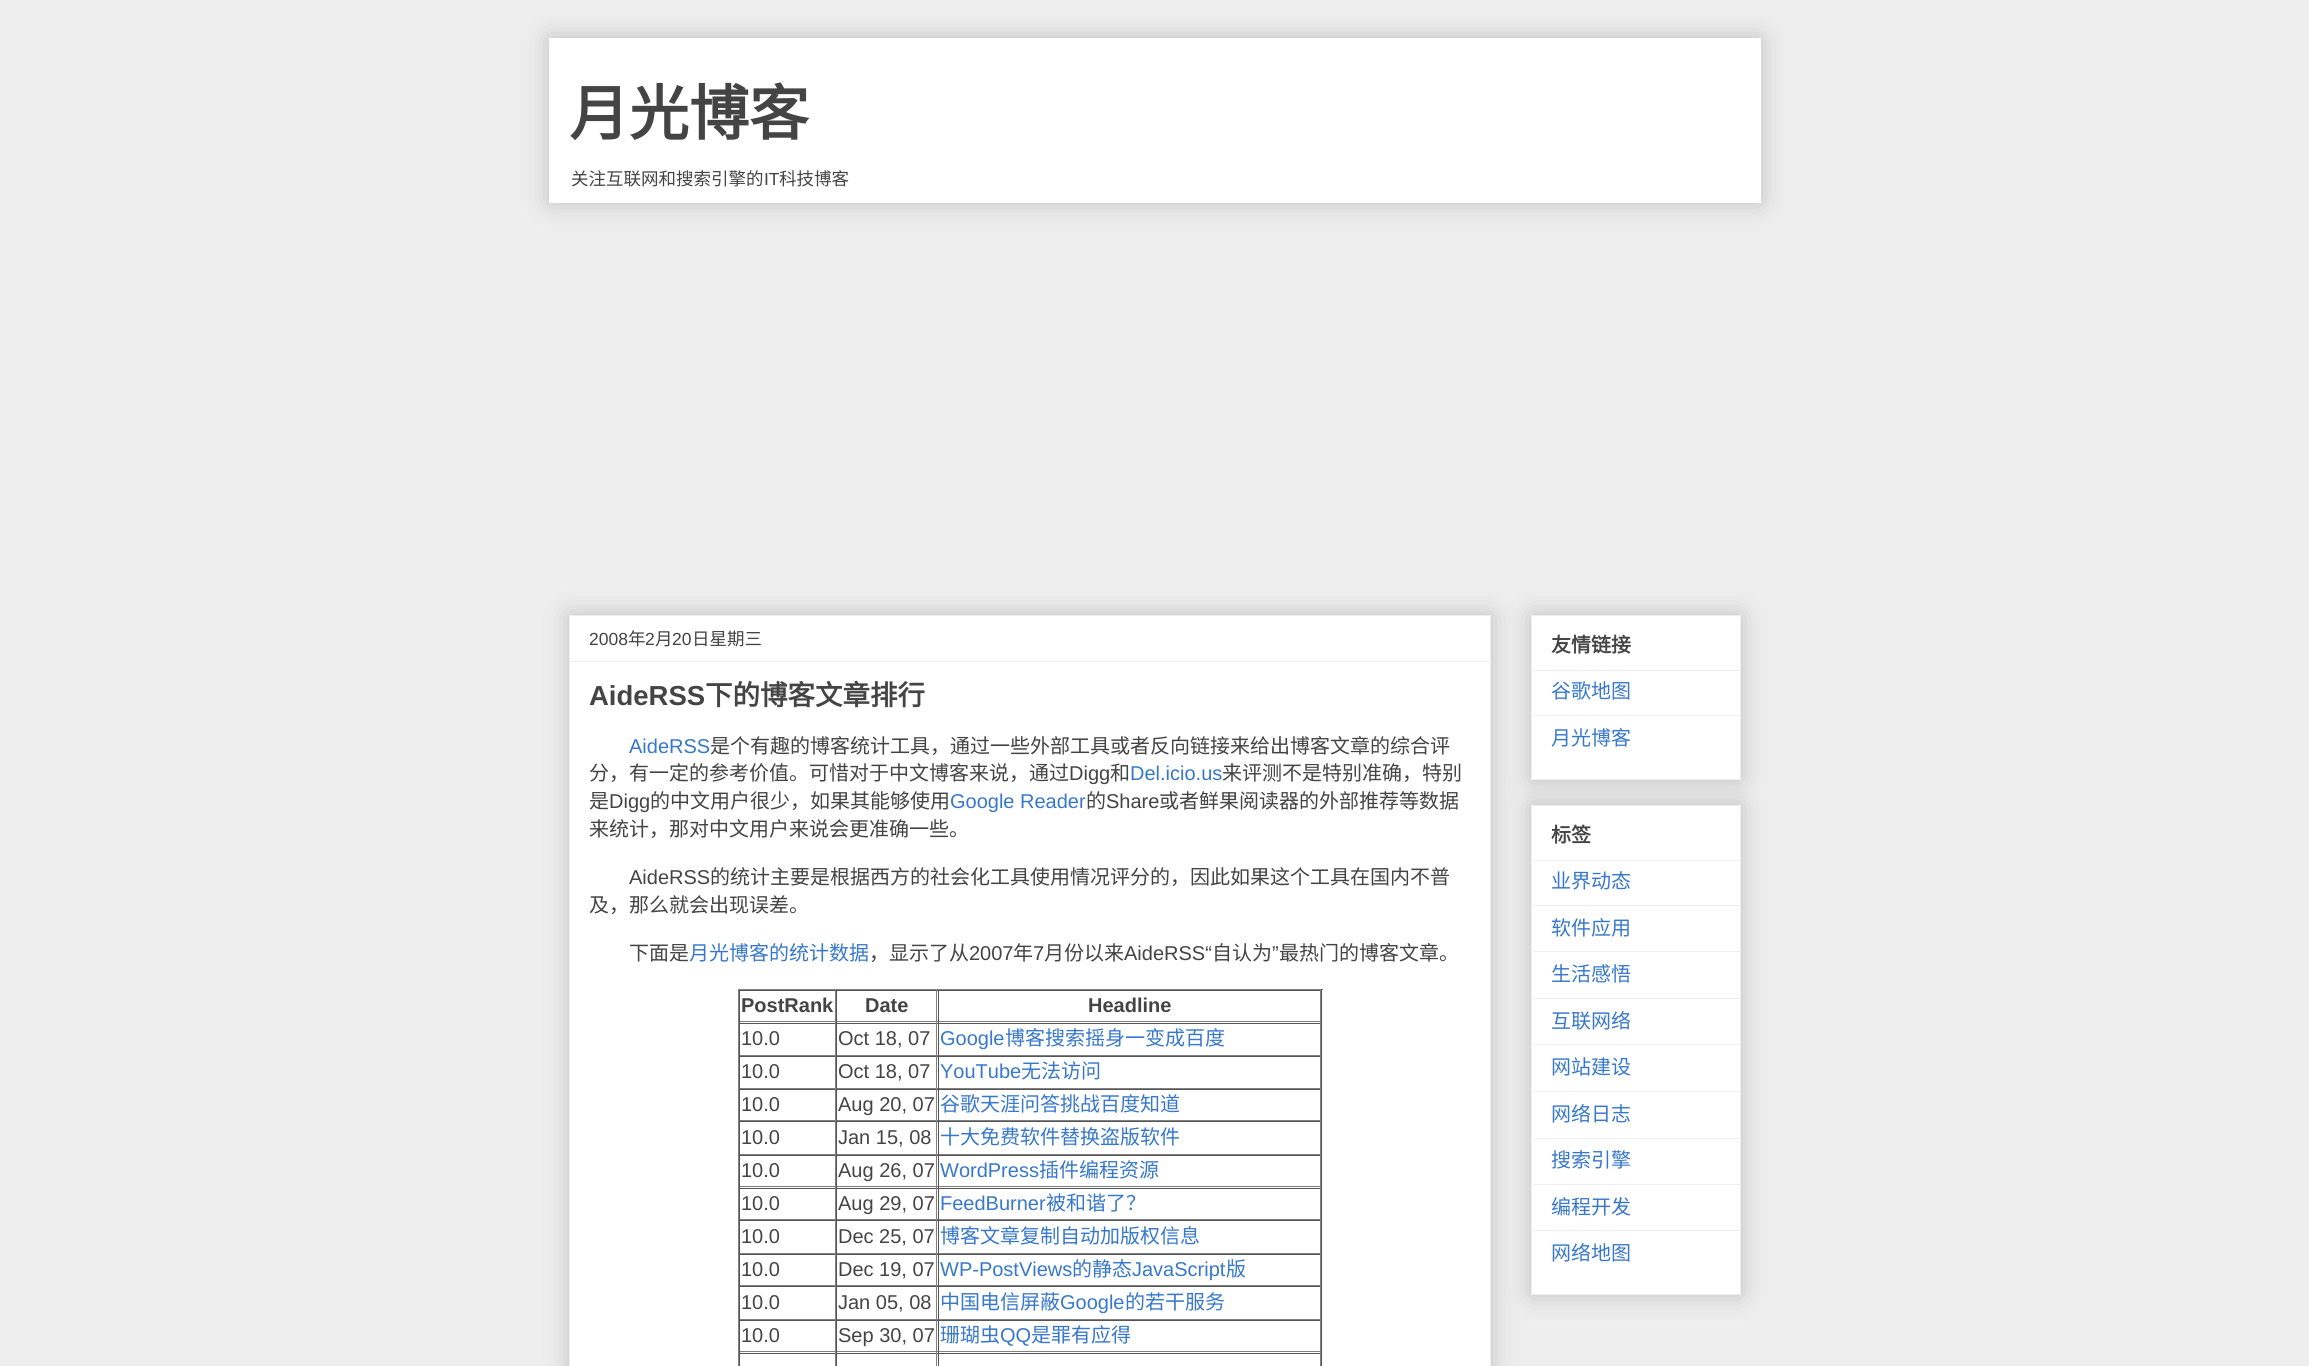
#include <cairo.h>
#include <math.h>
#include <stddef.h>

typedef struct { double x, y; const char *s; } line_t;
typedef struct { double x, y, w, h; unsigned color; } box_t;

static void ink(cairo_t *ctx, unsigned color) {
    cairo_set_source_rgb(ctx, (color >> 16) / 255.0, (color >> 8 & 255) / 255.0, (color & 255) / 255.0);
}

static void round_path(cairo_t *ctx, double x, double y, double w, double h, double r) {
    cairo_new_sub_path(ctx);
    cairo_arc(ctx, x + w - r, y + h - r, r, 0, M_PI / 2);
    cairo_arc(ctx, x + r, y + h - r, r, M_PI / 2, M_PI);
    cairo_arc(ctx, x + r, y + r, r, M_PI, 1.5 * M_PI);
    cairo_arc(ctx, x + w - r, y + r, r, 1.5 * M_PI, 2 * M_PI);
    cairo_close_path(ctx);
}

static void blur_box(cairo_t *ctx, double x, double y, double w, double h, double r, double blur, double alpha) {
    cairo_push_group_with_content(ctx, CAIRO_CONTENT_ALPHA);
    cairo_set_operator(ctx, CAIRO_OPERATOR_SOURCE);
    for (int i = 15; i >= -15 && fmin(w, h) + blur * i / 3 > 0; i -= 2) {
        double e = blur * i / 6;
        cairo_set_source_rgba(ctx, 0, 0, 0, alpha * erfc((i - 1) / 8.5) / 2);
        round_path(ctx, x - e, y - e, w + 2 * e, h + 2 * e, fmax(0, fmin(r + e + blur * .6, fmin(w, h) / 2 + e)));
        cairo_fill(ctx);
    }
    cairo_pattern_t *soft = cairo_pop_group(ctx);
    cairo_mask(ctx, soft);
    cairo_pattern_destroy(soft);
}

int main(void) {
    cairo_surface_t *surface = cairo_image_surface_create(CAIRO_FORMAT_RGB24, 2309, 1366);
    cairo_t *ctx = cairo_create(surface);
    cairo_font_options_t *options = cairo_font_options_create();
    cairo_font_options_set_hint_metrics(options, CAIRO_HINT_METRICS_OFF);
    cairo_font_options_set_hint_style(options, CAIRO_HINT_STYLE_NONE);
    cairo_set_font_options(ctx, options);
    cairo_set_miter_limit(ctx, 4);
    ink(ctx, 0xEEEEEE);
    cairo_paint(ctx);
    ink(ctx, 0x000000);
    blur_box(ctx, 549, 38, 1212, 165, 0, 12.5, 0.2);
    ink(ctx, 0xFFFFFF);
    cairo_rectangle(ctx, 549, 38, 1212, 165);
    cairo_fill(ctx);
    cairo_select_font_face(ctx, "Noto Sans CJK SC", CAIRO_FONT_SLANT_NORMAL, CAIRO_FONT_WEIGHT_BOLD);
    cairo_set_font_size(ctx, 60);
    ink(ctx, 0x444444);
    cairo_move_to(ctx, 569, 135);
    cairo_show_text(ctx, "月光博客");
    cairo_select_font_face(ctx, "Noto Sans CJK SC", CAIRO_FONT_SLANT_NORMAL, CAIRO_FONT_WEIGHT_NORMAL);
    cairo_set_font_size(ctx, 17.5);
    cairo_move_to(ctx, 571, 185);
    cairo_show_text(ctx, "关注互联网和搜索引擎的");
    cairo_select_font_face(ctx, "Liberation Sans", CAIRO_FONT_SLANT_NORMAL, CAIRO_FONT_WEIGHT_NORMAL);
    cairo_move_to(ctx, 764, 185);
    cairo_show_text(ctx, "IT");
    cairo_select_font_face(ctx, "Noto Sans CJK SC", CAIRO_FONT_SLANT_NORMAL, CAIRO_FONT_WEIGHT_NORMAL);
    cairo_move_to(ctx, 779, 185);
    cairo_show_text(ctx, "科技博客");
    ink(ctx, 0x000000);
    blur_box(ctx, 569, 615, 922, 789, 0, 12.5, 0.2);
    ink(ctx, 0xFFFFFF);
    cairo_rectangle(ctx, 569.5, 615.5, 921, 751);
    cairo_fill_preserve(ctx);
    ink(ctx, 0xEEEEEE);
    cairo_set_line_width(ctx, 1);
    cairo_stroke(ctx);
    cairo_select_font_face(ctx, "Liberation Sans", CAIRO_FONT_SLANT_NORMAL, CAIRO_FONT_WEIGHT_NORMAL);
    ink(ctx, 0x444444);
    cairo_move_to(ctx, 589, 645);
    cairo_show_text(ctx, "2008");
    cairo_select_font_face(ctx, "Noto Sans CJK SC", CAIRO_FONT_SLANT_NORMAL, CAIRO_FONT_WEIGHT_NORMAL);
    cairo_move_to(ctx, 628, 645);
    cairo_show_text(ctx, "年");
    cairo_select_font_face(ctx, "Liberation Sans", CAIRO_FONT_SLANT_NORMAL, CAIRO_FONT_WEIGHT_NORMAL);
    cairo_move_to(ctx, 645, 645);
    cairo_show_text(ctx, "2");
    cairo_select_font_face(ctx, "Noto Sans CJK SC", CAIRO_FONT_SLANT_NORMAL, CAIRO_FONT_WEIGHT_NORMAL);
    cairo_move_to(ctx, 655, 645);
    cairo_show_text(ctx, "月");
    cairo_select_font_face(ctx, "Liberation Sans", CAIRO_FONT_SLANT_NORMAL, CAIRO_FONT_WEIGHT_NORMAL);
    cairo_move_to(ctx, 672, 645);
    cairo_show_text(ctx, "20");
    cairo_select_font_face(ctx, "Noto Sans CJK SC", CAIRO_FONT_SLANT_NORMAL, CAIRO_FONT_WEIGHT_NORMAL);
    cairo_move_to(ctx, 692, 645);
    cairo_show_text(ctx, "日星期三");
    ink(ctx, 0xEEEEEE);
    cairo_rectangle(ctx, 570, 661, 920, 1);
    cairo_fill(ctx);
    cairo_select_font_face(ctx, "Liberation Sans", CAIRO_FONT_SLANT_NORMAL, CAIRO_FONT_WEIGHT_BOLD);
    cairo_set_font_size(ctx, 27.5);
    ink(ctx, 0x444444);
    cairo_move_to(ctx, 589, 705);
    cairo_show_text(ctx, "AideRSS");
    cairo_select_font_face(ctx, "Noto Sans CJK SC", CAIRO_FONT_SLANT_NORMAL, CAIRO_FONT_WEIGHT_BOLD);
    cairo_move_to(ctx, 705, 705);
    cairo_show_text(ctx, "下的博客文章排行");
    cairo_select_font_face(ctx, "Liberation Sans", CAIRO_FONT_SLANT_NORMAL, CAIRO_FONT_WEIGHT_NORMAL);
    cairo_set_font_size(ctx, 20);
    ink(ctx, 0x3778CD);
    cairo_move_to(ctx, 629, 753);
    cairo_show_text(ctx, "AideRSS");
    cairo_select_font_face(ctx, "Noto Sans CJK SC", CAIRO_FONT_SLANT_NORMAL, CAIRO_FONT_WEIGHT_NORMAL);
    ink(ctx, 0x444444);
    cairo_move_to(ctx, 710, 753);
    cairo_show_text(ctx, "是个有趣的博客统计工具，通过一些外部工具或者反向链接来给出博客文章的综合评");
    cairo_move_to(ctx, 589, 780);
    cairo_show_text(ctx, "分，有一定的参考价值。可惜对于中文博客来说，通过");
    cairo_select_font_face(ctx, "Liberation Sans", CAIRO_FONT_SLANT_NORMAL, CAIRO_FONT_WEIGHT_NORMAL);
    cairo_move_to(ctx, 1069, 780);
    cairo_show_text(ctx, "Digg");
    cairo_select_font_face(ctx, "Noto Sans CJK SC", CAIRO_FONT_SLANT_NORMAL, CAIRO_FONT_WEIGHT_NORMAL);
    cairo_move_to(ctx, 1110, 780);
    cairo_show_text(ctx, "和");
    cairo_select_font_face(ctx, "Liberation Sans", CAIRO_FONT_SLANT_NORMAL, CAIRO_FONT_WEIGHT_NORMAL);
    ink(ctx, 0x3778CD);
    cairo_move_to(ctx, 1130, 780);
    cairo_show_text(ctx, "Del.icio.us");
    cairo_select_font_face(ctx, "Noto Sans CJK SC", CAIRO_FONT_SLANT_NORMAL, CAIRO_FONT_WEIGHT_NORMAL);
    ink(ctx, 0x444444);
    cairo_move_to(ctx, 1222, 780);
    cairo_show_text(ctx, "来评测不是特别准确，特别");
    cairo_move_to(ctx, 589, 808);
    cairo_show_text(ctx, "是");
    cairo_select_font_face(ctx, "Liberation Sans", CAIRO_FONT_SLANT_NORMAL, CAIRO_FONT_WEIGHT_NORMAL);
    cairo_move_to(ctx, 609, 808);
    cairo_show_text(ctx, "Digg");
    cairo_select_font_face(ctx, "Noto Sans CJK SC", CAIRO_FONT_SLANT_NORMAL, CAIRO_FONT_WEIGHT_NORMAL);
    cairo_move_to(ctx, 650, 808);
    cairo_show_text(ctx, "的中文用户很少，如果其能够使用");
    cairo_select_font_face(ctx, "Liberation Sans", CAIRO_FONT_SLANT_NORMAL, CAIRO_FONT_WEIGHT_NORMAL);
    ink(ctx, 0x3778CD);
    cairo_move_to(ctx, 950, 808);
    cairo_show_text(ctx, "Google Reader");
    cairo_select_font_face(ctx, "Noto Sans CJK SC", CAIRO_FONT_SLANT_NORMAL, CAIRO_FONT_WEIGHT_NORMAL);
    ink(ctx, 0x444444);
    cairo_move_to(ctx, 1086, 808);
    cairo_show_text(ctx, "的");
    cairo_select_font_face(ctx, "Liberation Sans", CAIRO_FONT_SLANT_NORMAL, CAIRO_FONT_WEIGHT_NORMAL);
    cairo_move_to(ctx, 1106, 808);
    cairo_show_text(ctx, "Share");
    cairo_select_font_face(ctx, "Noto Sans CJK SC", CAIRO_FONT_SLANT_NORMAL, CAIRO_FONT_WEIGHT_NORMAL);
    cairo_move_to(ctx, 1159, 808);
    cairo_show_text(ctx, "或者鲜果阅读器的外部推荐等数据");
    cairo_move_to(ctx, 589, 836);
    cairo_show_text(ctx, "来统计，那对中文用户来说会更准确一些。");
    cairo_select_font_face(ctx, "Liberation Sans", CAIRO_FONT_SLANT_NORMAL, CAIRO_FONT_WEIGHT_NORMAL);
    cairo_move_to(ctx, 629, 884);
    cairo_show_text(ctx, "AideRSS");
    cairo_select_font_face(ctx, "Noto Sans CJK SC", CAIRO_FONT_SLANT_NORMAL, CAIRO_FONT_WEIGHT_NORMAL);
    {
        static const line_t items[] = {
            {710, 884, "的统计主要是根据西方的社会化工具使用情况评分的，因此如果这个工具在国内不普"},
            {589, 912, "及，那么就会出现误差。"},
            {629, 960, "下面是"},
        };
        for (size_t i = 0; i < sizeof items / sizeof *items; i++) {
            cairo_move_to(ctx, items[i].x, items[i].y);
            cairo_show_text(ctx, items[i].s);
        }
    }
    ink(ctx, 0x3778CD);
    cairo_move_to(ctx, 689, 960);
    cairo_show_text(ctx, "月光博客的统计数据");
    ink(ctx, 0x444444);
    cairo_move_to(ctx, 869, 960);
    cairo_show_text(ctx, "，显示了从");
    cairo_select_font_face(ctx, "Liberation Sans", CAIRO_FONT_SLANT_NORMAL, CAIRO_FONT_WEIGHT_NORMAL);
    cairo_move_to(ctx, 969, 960);
    cairo_show_text(ctx, "2007");
    cairo_select_font_face(ctx, "Noto Sans CJK SC", CAIRO_FONT_SLANT_NORMAL, CAIRO_FONT_WEIGHT_NORMAL);
    cairo_move_to(ctx, 1013, 960);
    cairo_show_text(ctx, "年");
    cairo_select_font_face(ctx, "Liberation Sans", CAIRO_FONT_SLANT_NORMAL, CAIRO_FONT_WEIGHT_NORMAL);
    cairo_move_to(ctx, 1033, 960);
    cairo_show_text(ctx, "7");
    cairo_select_font_face(ctx, "Noto Sans CJK SC", CAIRO_FONT_SLANT_NORMAL, CAIRO_FONT_WEIGHT_NORMAL);
    cairo_move_to(ctx, 1044, 960);
    cairo_show_text(ctx, "月份以来");
    cairo_select_font_face(ctx, "Liberation Sans", CAIRO_FONT_SLANT_NORMAL, CAIRO_FONT_WEIGHT_NORMAL);
    cairo_move_to(ctx, 1124, 960);
    cairo_show_text(ctx, "AideRSS“");
    cairo_select_font_face(ctx, "Noto Sans CJK SC", CAIRO_FONT_SLANT_NORMAL, CAIRO_FONT_WEIGHT_NORMAL);
    cairo_move_to(ctx, 1212, 960);
    cairo_show_text(ctx, "自认为");
    cairo_select_font_face(ctx, "Liberation Sans", CAIRO_FONT_SLANT_NORMAL, CAIRO_FONT_WEIGHT_NORMAL);
    cairo_move_to(ctx, 1272, 960);
    cairo_show_text(ctx, "”");
    cairo_select_font_face(ctx, "Noto Sans CJK SC", CAIRO_FONT_SLANT_NORMAL, CAIRO_FONT_WEIGHT_NORMAL);
    cairo_move_to(ctx, 1279, 960);
    cairo_show_text(ctx, "最热门的博客文章。");
    {
        static const box_t items[] = {
            {738, 989, 585, 1, 0x808080},
            {1321, 989, 1, 377, 0x555555},
            {738, 989, 1, 377, 0x808080},
            {739, 990, 582, 1, 0x555555},
            {835, 990, 1, 33, 0x808080},
            {739, 1021, 97, 1, 0x808080},
            {739, 990, 1, 33, 0x555555},
        };
        for (size_t i = 0; i < sizeof items / sizeof *items; i++) {
            ink(ctx, items[i].color);
            cairo_rectangle(ctx, items[i].x, items[i].y, items[i].w, items[i].h);
            cairo_fill(ctx);
        }
    }
    cairo_select_font_face(ctx, "Liberation Sans", CAIRO_FONT_SLANT_NORMAL, CAIRO_FONT_WEIGHT_BOLD);
    ink(ctx, 0x444444);
    cairo_move_to(ctx, 741, 1012);
    cairo_show_text(ctx, "PostRank");
    {
        static const box_t items[] = {
            {936, 990, 1, 33, 0x808080},
            {836, 1021, 102, 1, 0x808080},
            {836, 990, 1, 33, 0x555555},
        };
        for (size_t i = 0; i < sizeof items / sizeof *items; i++) {
            ink(ctx, items[i].color);
            cairo_rectangle(ctx, items[i].x, items[i].y, items[i].w, items[i].h);
            cairo_fill(ctx);
        }
    }
    ink(ctx, 0x444444);
    cairo_move_to(ctx, 865, 1012);
    cairo_show_text(ctx, "Date");
    {
        static const box_t items[] = {
            {1320, 990, 1, 33, 0x808080},
            {938, 1021, 383, 1, 0x808080},
            {938, 990, 1, 33, 0x555555},
        };
        for (size_t i = 0; i < sizeof items / sizeof *items; i++) {
            ink(ctx, items[i].color);
            cairo_rectangle(ctx, items[i].x, items[i].y, items[i].w, items[i].h);
            cairo_fill(ctx);
        }
    }
    ink(ctx, 0x444444);
    cairo_move_to(ctx, 1088, 1012);
    cairo_show_text(ctx, "Headline");
    {
        static const box_t items[] = {
            {739, 1023, 582, 1, 0x555555},
            {835, 1023, 1, 33, 0x808080},
            {739, 1055, 97, 1, 0x808080},
            {739, 1023, 1, 33, 0x555555},
        };
        for (size_t i = 0; i < sizeof items / sizeof *items; i++) {
            ink(ctx, items[i].color);
            cairo_rectangle(ctx, items[i].x, items[i].y, items[i].w, items[i].h);
            cairo_fill(ctx);
        }
    }
    cairo_select_font_face(ctx, "Liberation Sans", CAIRO_FONT_SLANT_NORMAL, CAIRO_FONT_WEIGHT_NORMAL);
    ink(ctx, 0x444444);
    cairo_move_to(ctx, 741, 1045);
    cairo_show_text(ctx, "10.0");
    {
        static const box_t items[] = {
            {936, 1023, 1, 33, 0x808080},
            {836, 1055, 102, 1, 0x808080},
            {836, 1023, 1, 33, 0x555555},
        };
        for (size_t i = 0; i < sizeof items / sizeof *items; i++) {
            ink(ctx, items[i].color);
            cairo_rectangle(ctx, items[i].x, items[i].y, items[i].w, items[i].h);
            cairo_fill(ctx);
        }
    }
    ink(ctx, 0x444444);
    cairo_move_to(ctx, 838, 1045);
    cairo_show_text(ctx, "Oct 18, 07");
    {
        static const box_t items[] = {
            {1320, 1023, 1, 33, 0x808080},
            {938, 1055, 383, 1, 0x808080},
            {938, 1023, 1, 33, 0x555555},
        };
        for (size_t i = 0; i < sizeof items / sizeof *items; i++) {
            ink(ctx, items[i].color);
            cairo_rectangle(ctx, items[i].x, items[i].y, items[i].w, items[i].h);
            cairo_fill(ctx);
        }
    }
    ink(ctx, 0x3778CD);
    cairo_move_to(ctx, 940, 1045);
    cairo_show_text(ctx, "Google");
    cairo_select_font_face(ctx, "Noto Sans CJK SC", CAIRO_FONT_SLANT_NORMAL, CAIRO_FONT_WEIGHT_NORMAL);
    cairo_move_to(ctx, 1005, 1045);
    cairo_show_text(ctx, "博客搜索摇身一变成百度");
    {
        static const box_t items[] = {
            {739, 1056, 582, 1, 0x555555},
            {835, 1056, 1, 33, 0x808080},
            {739, 1088, 97, 1, 0x808080},
            {739, 1056, 1, 33, 0x555555},
        };
        for (size_t i = 0; i < sizeof items / sizeof *items; i++) {
            ink(ctx, items[i].color);
            cairo_rectangle(ctx, items[i].x, items[i].y, items[i].w, items[i].h);
            cairo_fill(ctx);
        }
    }
    cairo_select_font_face(ctx, "Liberation Sans", CAIRO_FONT_SLANT_NORMAL, CAIRO_FONT_WEIGHT_NORMAL);
    ink(ctx, 0x444444);
    cairo_move_to(ctx, 741, 1078);
    cairo_show_text(ctx, "10.0");
    {
        static const box_t items[] = {
            {936, 1056, 1, 33, 0x808080},
            {836, 1088, 102, 1, 0x808080},
            {836, 1056, 1, 33, 0x555555},
        };
        for (size_t i = 0; i < sizeof items / sizeof *items; i++) {
            ink(ctx, items[i].color);
            cairo_rectangle(ctx, items[i].x, items[i].y, items[i].w, items[i].h);
            cairo_fill(ctx);
        }
    }
    ink(ctx, 0x444444);
    cairo_move_to(ctx, 838, 1078);
    cairo_show_text(ctx, "Oct 18, 07");
    {
        static const box_t items[] = {
            {1320, 1056, 1, 33, 0x808080},
            {938, 1088, 383, 1, 0x808080},
            {938, 1056, 1, 33, 0x555555},
        };
        for (size_t i = 0; i < sizeof items / sizeof *items; i++) {
            ink(ctx, items[i].color);
            cairo_rectangle(ctx, items[i].x, items[i].y, items[i].w, items[i].h);
            cairo_fill(ctx);
        }
    }
    ink(ctx, 0x3778CD);
    cairo_move_to(ctx, 940, 1078);
    cairo_show_text(ctx, "YouTube");
    cairo_select_font_face(ctx, "Noto Sans CJK SC", CAIRO_FONT_SLANT_NORMAL, CAIRO_FONT_WEIGHT_NORMAL);
    cairo_move_to(ctx, 1021, 1078);
    cairo_show_text(ctx, "无法访问");
    {
        static const box_t items[] = {
            {739, 1089, 582, 1, 0x555555},
            {835, 1089, 1, 32, 0x808080},
            {739, 1120, 97, 1, 0x808080},
            {739, 1089, 1, 32, 0x555555},
        };
        for (size_t i = 0; i < sizeof items / sizeof *items; i++) {
            ink(ctx, items[i].color);
            cairo_rectangle(ctx, items[i].x, items[i].y, items[i].w, items[i].h);
            cairo_fill(ctx);
        }
    }
    cairo_select_font_face(ctx, "Liberation Sans", CAIRO_FONT_SLANT_NORMAL, CAIRO_FONT_WEIGHT_NORMAL);
    ink(ctx, 0x444444);
    cairo_move_to(ctx, 741, 1111);
    cairo_show_text(ctx, "10.0");
    {
        static const box_t items[] = {
            {936, 1089, 1, 32, 0x808080},
            {836, 1120, 102, 1, 0x808080},
            {836, 1089, 1, 32, 0x555555},
        };
        for (size_t i = 0; i < sizeof items / sizeof *items; i++) {
            ink(ctx, items[i].color);
            cairo_rectangle(ctx, items[i].x, items[i].y, items[i].w, items[i].h);
            cairo_fill(ctx);
        }
    }
    ink(ctx, 0x444444);
    cairo_move_to(ctx, 838, 1111);
    cairo_show_text(ctx, "Aug 20, 07");
    {
        static const box_t items[] = {
            {1320, 1089, 1, 32, 0x808080},
            {938, 1120, 383, 1, 0x808080},
            {938, 1089, 1, 32, 0x555555},
        };
        for (size_t i = 0; i < sizeof items / sizeof *items; i++) {
            ink(ctx, items[i].color);
            cairo_rectangle(ctx, items[i].x, items[i].y, items[i].w, items[i].h);
            cairo_fill(ctx);
        }
    }
    cairo_select_font_face(ctx, "Noto Sans CJK SC", CAIRO_FONT_SLANT_NORMAL, CAIRO_FONT_WEIGHT_NORMAL);
    ink(ctx, 0x3778CD);
    cairo_move_to(ctx, 940, 1111);
    cairo_show_text(ctx, "谷歌天涯问答挑战百度知道");
    {
        static const box_t items[] = {
            {739, 1121, 582, 1, 0x555555},
            {835, 1121, 1, 34, 0x808080},
            {739, 1154, 97, 1, 0x808080},
            {739, 1121, 1, 34, 0x555555},
        };
        for (size_t i = 0; i < sizeof items / sizeof *items; i++) {
            ink(ctx, items[i].color);
            cairo_rectangle(ctx, items[i].x, items[i].y, items[i].w, items[i].h);
            cairo_fill(ctx);
        }
    }
    cairo_select_font_face(ctx, "Liberation Sans", CAIRO_FONT_SLANT_NORMAL, CAIRO_FONT_WEIGHT_NORMAL);
    ink(ctx, 0x444444);
    cairo_move_to(ctx, 741, 1144);
    cairo_show_text(ctx, "10.0");
    {
        static const box_t items[] = {
            {936, 1121, 1, 34, 0x808080},
            {836, 1154, 102, 1, 0x808080},
            {836, 1121, 1, 34, 0x555555},
        };
        for (size_t i = 0; i < sizeof items / sizeof *items; i++) {
            ink(ctx, items[i].color);
            cairo_rectangle(ctx, items[i].x, items[i].y, items[i].w, items[i].h);
            cairo_fill(ctx);
        }
    }
    ink(ctx, 0x444444);
    cairo_move_to(ctx, 838, 1144);
    cairo_show_text(ctx, "Jan 15, 08");
    {
        static const box_t items[] = {
            {1320, 1121, 1, 34, 0x808080},
            {938, 1154, 383, 1, 0x808080},
            {938, 1121, 1, 34, 0x555555},
        };
        for (size_t i = 0; i < sizeof items / sizeof *items; i++) {
            ink(ctx, items[i].color);
            cairo_rectangle(ctx, items[i].x, items[i].y, items[i].w, items[i].h);
            cairo_fill(ctx);
        }
    }
    cairo_select_font_face(ctx, "Noto Sans CJK SC", CAIRO_FONT_SLANT_NORMAL, CAIRO_FONT_WEIGHT_NORMAL);
    ink(ctx, 0x3778CD);
    cairo_move_to(ctx, 940, 1144);
    cairo_show_text(ctx, "十大免费软件替换盗版软件");
    {
        static const box_t items[] = {
            {739, 1155, 582, 1, 0x555555},
            {835, 1155, 1, 33, 0x808080},
            {739, 1186, 97, 1, 0x808080},
            {739, 1155, 1, 33, 0x555555},
        };
        for (size_t i = 0; i < sizeof items / sizeof *items; i++) {
            ink(ctx, items[i].color);
            cairo_rectangle(ctx, items[i].x, items[i].y, items[i].w, items[i].h);
            cairo_fill(ctx);
        }
    }
    cairo_select_font_face(ctx, "Liberation Sans", CAIRO_FONT_SLANT_NORMAL, CAIRO_FONT_WEIGHT_NORMAL);
    ink(ctx, 0x444444);
    cairo_move_to(ctx, 741, 1177);
    cairo_show_text(ctx, "10.0");
    {
        static const box_t items[] = {
            {936, 1155, 1, 33, 0x808080},
            {836, 1186, 102, 1, 0x808080},
            {836, 1155, 1, 33, 0x555555},
        };
        for (size_t i = 0; i < sizeof items / sizeof *items; i++) {
            ink(ctx, items[i].color);
            cairo_rectangle(ctx, items[i].x, items[i].y, items[i].w, items[i].h);
            cairo_fill(ctx);
        }
    }
    ink(ctx, 0x444444);
    cairo_move_to(ctx, 838, 1177);
    cairo_show_text(ctx, "Aug 26, 07");
    {
        static const box_t items[] = {
            {1320, 1155, 1, 33, 0x808080},
            {938, 1186, 383, 1, 0x808080},
            {938, 1155, 1, 33, 0x555555},
        };
        for (size_t i = 0; i < sizeof items / sizeof *items; i++) {
            ink(ctx, items[i].color);
            cairo_rectangle(ctx, items[i].x, items[i].y, items[i].w, items[i].h);
            cairo_fill(ctx);
        }
    }
    ink(ctx, 0x3778CD);
    cairo_move_to(ctx, 940, 1177);
    cairo_show_text(ctx, "WordPress");
    cairo_select_font_face(ctx, "Noto Sans CJK SC", CAIRO_FONT_SLANT_NORMAL, CAIRO_FONT_WEIGHT_NORMAL);
    cairo_move_to(ctx, 1039, 1177);
    cairo_show_text(ctx, "插件编程资源");
    {
        static const box_t items[] = {
            {739, 1188, 582, 1, 0x555555},
            {835, 1188, 1, 32, 0x808080},
            {739, 1219, 97, 1, 0x808080},
            {739, 1188, 1, 32, 0x555555},
        };
        for (size_t i = 0; i < sizeof items / sizeof *items; i++) {
            ink(ctx, items[i].color);
            cairo_rectangle(ctx, items[i].x, items[i].y, items[i].w, items[i].h);
            cairo_fill(ctx);
        }
    }
    cairo_select_font_face(ctx, "Liberation Sans", CAIRO_FONT_SLANT_NORMAL, CAIRO_FONT_WEIGHT_NORMAL);
    ink(ctx, 0x444444);
    cairo_move_to(ctx, 741, 1210);
    cairo_show_text(ctx, "10.0");
    {
        static const box_t items[] = {
            {936, 1188, 1, 32, 0x808080},
            {836, 1219, 102, 1, 0x808080},
            {836, 1188, 1, 32, 0x555555},
        };
        for (size_t i = 0; i < sizeof items / sizeof *items; i++) {
            ink(ctx, items[i].color);
            cairo_rectangle(ctx, items[i].x, items[i].y, items[i].w, items[i].h);
            cairo_fill(ctx);
        }
    }
    ink(ctx, 0x444444);
    cairo_move_to(ctx, 838, 1210);
    cairo_show_text(ctx, "Aug 29, 07");
    {
        static const box_t items[] = {
            {1320, 1188, 1, 32, 0x808080},
            {938, 1219, 383, 1, 0x808080},
            {938, 1188, 1, 32, 0x555555},
        };
        for (size_t i = 0; i < sizeof items / sizeof *items; i++) {
            ink(ctx, items[i].color);
            cairo_rectangle(ctx, items[i].x, items[i].y, items[i].w, items[i].h);
            cairo_fill(ctx);
        }
    }
    ink(ctx, 0x3778CD);
    cairo_move_to(ctx, 940, 1210);
    cairo_show_text(ctx, "FeedBurner");
    cairo_select_font_face(ctx, "Noto Sans CJK SC", CAIRO_FONT_SLANT_NORMAL, CAIRO_FONT_WEIGHT_NORMAL);
    cairo_move_to(ctx, 1046, 1210);
    cairo_show_text(ctx, "被和谐了？");
    {
        static const box_t items[] = {
            {739, 1220, 582, 1, 0x555555},
            {835, 1220, 1, 34, 0x808080},
            {739, 1253, 97, 1, 0x808080},
            {739, 1220, 1, 34, 0x555555},
        };
        for (size_t i = 0; i < sizeof items / sizeof *items; i++) {
            ink(ctx, items[i].color);
            cairo_rectangle(ctx, items[i].x, items[i].y, items[i].w, items[i].h);
            cairo_fill(ctx);
        }
    }
    cairo_select_font_face(ctx, "Liberation Sans", CAIRO_FONT_SLANT_NORMAL, CAIRO_FONT_WEIGHT_NORMAL);
    ink(ctx, 0x444444);
    cairo_move_to(ctx, 741, 1243);
    cairo_show_text(ctx, "10.0");
    {
        static const box_t items[] = {
            {936, 1220, 1, 34, 0x808080},
            {836, 1253, 102, 1, 0x808080},
            {836, 1220, 1, 34, 0x555555},
        };
        for (size_t i = 0; i < sizeof items / sizeof *items; i++) {
            ink(ctx, items[i].color);
            cairo_rectangle(ctx, items[i].x, items[i].y, items[i].w, items[i].h);
            cairo_fill(ctx);
        }
    }
    ink(ctx, 0x444444);
    cairo_move_to(ctx, 838, 1243);
    cairo_show_text(ctx, "Dec 25, 07");
    {
        static const box_t items[] = {
            {1320, 1220, 1, 34, 0x808080},
            {938, 1253, 383, 1, 0x808080},
            {938, 1220, 1, 34, 0x555555},
        };
        for (size_t i = 0; i < sizeof items / sizeof *items; i++) {
            ink(ctx, items[i].color);
            cairo_rectangle(ctx, items[i].x, items[i].y, items[i].w, items[i].h);
            cairo_fill(ctx);
        }
    }
    cairo_select_font_face(ctx, "Noto Sans CJK SC", CAIRO_FONT_SLANT_NORMAL, CAIRO_FONT_WEIGHT_NORMAL);
    ink(ctx, 0x3778CD);
    cairo_move_to(ctx, 940, 1243);
    cairo_show_text(ctx, "博客文章复制自动加版权信息");
    {
        static const box_t items[] = {
            {739, 1254, 582, 1, 0x555555},
            {835, 1254, 1, 32, 0x808080},
            {739, 1285, 97, 1, 0x808080},
            {739, 1254, 1, 32, 0x555555},
        };
        for (size_t i = 0; i < sizeof items / sizeof *items; i++) {
            ink(ctx, items[i].color);
            cairo_rectangle(ctx, items[i].x, items[i].y, items[i].w, items[i].h);
            cairo_fill(ctx);
        }
    }
    cairo_select_font_face(ctx, "Liberation Sans", CAIRO_FONT_SLANT_NORMAL, CAIRO_FONT_WEIGHT_NORMAL);
    ink(ctx, 0x444444);
    cairo_move_to(ctx, 741, 1276);
    cairo_show_text(ctx, "10.0");
    {
        static const box_t items[] = {
            {936, 1254, 1, 32, 0x808080},
            {836, 1285, 102, 1, 0x808080},
            {836, 1254, 1, 32, 0x555555},
        };
        for (size_t i = 0; i < sizeof items / sizeof *items; i++) {
            ink(ctx, items[i].color);
            cairo_rectangle(ctx, items[i].x, items[i].y, items[i].w, items[i].h);
            cairo_fill(ctx);
        }
    }
    ink(ctx, 0x444444);
    cairo_move_to(ctx, 838, 1276);
    cairo_show_text(ctx, "Dec 19, 07");
    {
        static const box_t items[] = {
            {1320, 1254, 1, 32, 0x808080},
            {938, 1285, 383, 1, 0x808080},
            {938, 1254, 1, 32, 0x555555},
        };
        for (size_t i = 0; i < sizeof items / sizeof *items; i++) {
            ink(ctx, items[i].color);
            cairo_rectangle(ctx, items[i].x, items[i].y, items[i].w, items[i].h);
            cairo_fill(ctx);
        }
    }
    ink(ctx, 0x3778CD);
    cairo_move_to(ctx, 940, 1276);
    cairo_show_text(ctx, "WP-PostViews");
    cairo_select_font_face(ctx, "Noto Sans CJK SC", CAIRO_FONT_SLANT_NORMAL, CAIRO_FONT_WEIGHT_NORMAL);
    cairo_move_to(ctx, 1072, 1276);
    cairo_show_text(ctx, "的静态");
    cairo_select_font_face(ctx, "Liberation Sans", CAIRO_FONT_SLANT_NORMAL, CAIRO_FONT_WEIGHT_NORMAL);
    cairo_move_to(ctx, 1132, 1276);
    cairo_show_text(ctx, "JavaScript");
    cairo_select_font_face(ctx, "Noto Sans CJK SC", CAIRO_FONT_SLANT_NORMAL, CAIRO_FONT_WEIGHT_NORMAL);
    cairo_move_to(ctx, 1226, 1276);
    cairo_show_text(ctx, "版");
    {
        static const box_t items[] = {
            {739, 1286, 582, 1, 0x555555},
            {835, 1286, 1, 34, 0x808080},
            {739, 1319, 97, 1, 0x808080},
            {739, 1286, 1, 34, 0x555555},
        };
        for (size_t i = 0; i < sizeof items / sizeof *items; i++) {
            ink(ctx, items[i].color);
            cairo_rectangle(ctx, items[i].x, items[i].y, items[i].w, items[i].h);
            cairo_fill(ctx);
        }
    }
    cairo_select_font_face(ctx, "Liberation Sans", CAIRO_FONT_SLANT_NORMAL, CAIRO_FONT_WEIGHT_NORMAL);
    ink(ctx, 0x444444);
    cairo_move_to(ctx, 741, 1309);
    cairo_show_text(ctx, "10.0");
    {
        static const box_t items[] = {
            {936, 1286, 1, 34, 0x808080},
            {836, 1319, 102, 1, 0x808080},
            {836, 1286, 1, 34, 0x555555},
        };
        for (size_t i = 0; i < sizeof items / sizeof *items; i++) {
            ink(ctx, items[i].color);
            cairo_rectangle(ctx, items[i].x, items[i].y, items[i].w, items[i].h);
            cairo_fill(ctx);
        }
    }
    ink(ctx, 0x444444);
    cairo_move_to(ctx, 838, 1309);
    cairo_show_text(ctx, "Jan 05, 08");
    {
        static const box_t items[] = {
            {1320, 1286, 1, 34, 0x808080},
            {938, 1319, 383, 1, 0x808080},
            {938, 1286, 1, 34, 0x555555},
        };
        for (size_t i = 0; i < sizeof items / sizeof *items; i++) {
            ink(ctx, items[i].color);
            cairo_rectangle(ctx, items[i].x, items[i].y, items[i].w, items[i].h);
            cairo_fill(ctx);
        }
    }
    cairo_select_font_face(ctx, "Noto Sans CJK SC", CAIRO_FONT_SLANT_NORMAL, CAIRO_FONT_WEIGHT_NORMAL);
    ink(ctx, 0x3778CD);
    cairo_move_to(ctx, 940, 1309);
    cairo_show_text(ctx, "中国电信屏蔽");
    cairo_select_font_face(ctx, "Liberation Sans", CAIRO_FONT_SLANT_NORMAL, CAIRO_FONT_WEIGHT_NORMAL);
    cairo_move_to(ctx, 1060, 1309);
    cairo_show_text(ctx, "Google");
    cairo_select_font_face(ctx, "Noto Sans CJK SC", CAIRO_FONT_SLANT_NORMAL, CAIRO_FONT_WEIGHT_NORMAL);
    cairo_move_to(ctx, 1125, 1309);
    cairo_show_text(ctx, "的若干服务");
    {
        static const box_t items[] = {
            {739, 1320, 582, 1, 0x555555},
            {835, 1320, 1, 33, 0x808080},
            {739, 1351, 97, 1, 0x808080},
            {739, 1320, 1, 33, 0x555555},
        };
        for (size_t i = 0; i < sizeof items / sizeof *items; i++) {
            ink(ctx, items[i].color);
            cairo_rectangle(ctx, items[i].x, items[i].y, items[i].w, items[i].h);
            cairo_fill(ctx);
        }
    }
    cairo_select_font_face(ctx, "Liberation Sans", CAIRO_FONT_SLANT_NORMAL, CAIRO_FONT_WEIGHT_NORMAL);
    ink(ctx, 0x444444);
    cairo_move_to(ctx, 741, 1342);
    cairo_show_text(ctx, "10.0");
    {
        static const box_t items[] = {
            {936, 1320, 1, 33, 0x808080},
            {836, 1351, 102, 1, 0x808080},
            {836, 1320, 1, 33, 0x555555},
        };
        for (size_t i = 0; i < sizeof items / sizeof *items; i++) {
            ink(ctx, items[i].color);
            cairo_rectangle(ctx, items[i].x, items[i].y, items[i].w, items[i].h);
            cairo_fill(ctx);
        }
    }
    ink(ctx, 0x444444);
    cairo_move_to(ctx, 838, 1342);
    cairo_show_text(ctx, "Sep 30, 07");
    {
        static const box_t items[] = {
            {1320, 1320, 1, 33, 0x808080},
            {938, 1351, 383, 1, 0x808080},
            {938, 1320, 1, 33, 0x555555},
        };
        for (size_t i = 0; i < sizeof items / sizeof *items; i++) {
            ink(ctx, items[i].color);
            cairo_rectangle(ctx, items[i].x, items[i].y, items[i].w, items[i].h);
            cairo_fill(ctx);
        }
    }
    cairo_select_font_face(ctx, "Noto Sans CJK SC", CAIRO_FONT_SLANT_NORMAL, CAIRO_FONT_WEIGHT_NORMAL);
    ink(ctx, 0x3778CD);
    cairo_move_to(ctx, 940, 1342);
    cairo_show_text(ctx, "珊瑚虫");
    cairo_select_font_face(ctx, "Liberation Sans", CAIRO_FONT_SLANT_NORMAL, CAIRO_FONT_WEIGHT_NORMAL);
    cairo_move_to(ctx, 1000, 1342);
    cairo_show_text(ctx, "QQ");
    cairo_select_font_face(ctx, "Noto Sans CJK SC", CAIRO_FONT_SLANT_NORMAL, CAIRO_FONT_WEIGHT_NORMAL);
    cairo_move_to(ctx, 1031, 1342);
    cairo_show_text(ctx, "是罪有应得");
    {
        static const box_t items[] = {
            {739, 1353, 582, 1, 0x555555},
            {835, 1353, 1, 13, 0x808080},
            {739, 1353, 1, 13, 0x555555},
            {936, 1353, 1, 13, 0x808080},
            {836, 1353, 1, 13, 0x555555},
            {1320, 1353, 1, 13, 0x808080},
            {938, 1353, 1, 13, 0x555555},
        };
        for (size_t i = 0; i < sizeof items / sizeof *items; i++) {
            ink(ctx, items[i].color);
            cairo_rectangle(ctx, items[i].x, items[i].y, items[i].w, items[i].h);
            cairo_fill(ctx);
        }
    }
    ink(ctx, 0x000000);
    blur_box(ctx, 1531, 615, 210, 165, 0, 12.5, 0.2);
    ink(ctx, 0xFFFFFF);
    cairo_rectangle(ctx, 1531.5, 615.5, 209, 164);
    cairo_fill_preserve(ctx);
    ink(ctx, 0xEEEEEE);
    cairo_stroke(ctx);
    cairo_select_font_face(ctx, "Noto Sans CJK SC", CAIRO_FONT_SLANT_NORMAL, CAIRO_FONT_WEIGHT_BOLD);
    ink(ctx, 0x444444);
    cairo_move_to(ctx, 1551, 652);
    cairo_show_text(ctx, "友情链接");
    ink(ctx, 0xEEEEEE);
    cairo_rectangle(ctx, 1533, 670, 207, 1);
    cairo_fill(ctx);
    cairo_select_font_face(ctx, "Noto Sans CJK SC", CAIRO_FONT_SLANT_NORMAL, CAIRO_FONT_WEIGHT_NORMAL);
    ink(ctx, 0x3778CD);
    cairo_move_to(ctx, 1551, 698);
    cairo_show_text(ctx, "谷歌地图");
    ink(ctx, 0xEEEEEE);
    cairo_rectangle(ctx, 1533, 715, 207, 1);
    cairo_fill(ctx);
    ink(ctx, 0x3778CD);
    cairo_move_to(ctx, 1551, 745);
    cairo_show_text(ctx, "月光博客");
    ink(ctx, 0x000000);
    blur_box(ctx, 1531, 805, 210, 490, 0, 12.5, 0.2);
    ink(ctx, 0xFFFFFF);
    cairo_rectangle(ctx, 1531.5, 805.5, 209, 489);
    cairo_fill_preserve(ctx);
    ink(ctx, 0xEEEEEE);
    cairo_stroke(ctx);
    cairo_select_font_face(ctx, "Noto Sans CJK SC", CAIRO_FONT_SLANT_NORMAL, CAIRO_FONT_WEIGHT_BOLD);
    ink(ctx, 0x444444);
    cairo_move_to(ctx, 1551, 842);
    cairo_show_text(ctx, "标签");
    ink(ctx, 0xEEEEEE);
    cairo_rectangle(ctx, 1533, 860, 207, 1);
    cairo_fill(ctx);
    cairo_select_font_face(ctx, "Noto Sans CJK SC", CAIRO_FONT_SLANT_NORMAL, CAIRO_FONT_WEIGHT_NORMAL);
    ink(ctx, 0x3778CD);
    cairo_move_to(ctx, 1551, 888);
    cairo_show_text(ctx, "业界动态");
    ink(ctx, 0xEEEEEE);
    cairo_rectangle(ctx, 1533, 905, 207, 1);
    cairo_fill(ctx);
    ink(ctx, 0x3778CD);
    cairo_move_to(ctx, 1551, 935);
    cairo_show_text(ctx, "软件应用");
    ink(ctx, 0xEEEEEE);
    cairo_rectangle(ctx, 1533, 951, 207, 1);
    cairo_fill(ctx);
    ink(ctx, 0x3778CD);
    cairo_move_to(ctx, 1551, 981);
    cairo_show_text(ctx, "生活感悟");
    ink(ctx, 0xEEEEEE);
    cairo_rectangle(ctx, 1533, 998, 207, 1);
    cairo_fill(ctx);
    ink(ctx, 0x3778CD);
    cairo_move_to(ctx, 1551, 1028);
    cairo_show_text(ctx, "互联网络");
    ink(ctx, 0xEEEEEE);
    cairo_rectangle(ctx, 1533, 1044, 207, 1);
    cairo_fill(ctx);
    ink(ctx, 0x3778CD);
    cairo_move_to(ctx, 1551, 1074);
    cairo_show_text(ctx, "网站建设");
    ink(ctx, 0xEEEEEE);
    cairo_rectangle(ctx, 1533, 1091, 207, 1);
    cairo_fill(ctx);
    ink(ctx, 0x3778CD);
    cairo_move_to(ctx, 1551, 1121);
    cairo_show_text(ctx, "网络日志");
    ink(ctx, 0xEEEEEE);
    cairo_rectangle(ctx, 1533, 1138, 207, 1);
    cairo_fill(ctx);
    ink(ctx, 0x3778CD);
    cairo_move_to(ctx, 1551, 1167);
    cairo_show_text(ctx, "搜索引擎");
    ink(ctx, 0xEEEEEE);
    cairo_rectangle(ctx, 1533, 1184, 207, 1);
    cairo_fill(ctx);
    ink(ctx, 0x3778CD);
    cairo_move_to(ctx, 1551, 1214);
    cairo_show_text(ctx, "编程开发");
    ink(ctx, 0xEEEEEE);
    cairo_rectangle(ctx, 1533, 1230, 207, 1);
    cairo_fill(ctx);
    ink(ctx, 0x3778CD);
    cairo_move_to(ctx, 1551, 1260);
    cairo_show_text(ctx, "网络地图");
    cairo_surface_write_to_png(surface, "image.png");
    cairo_font_options_destroy(options);
    cairo_destroy(ctx);
    cairo_surface_destroy(surface);
    return 0;
}
